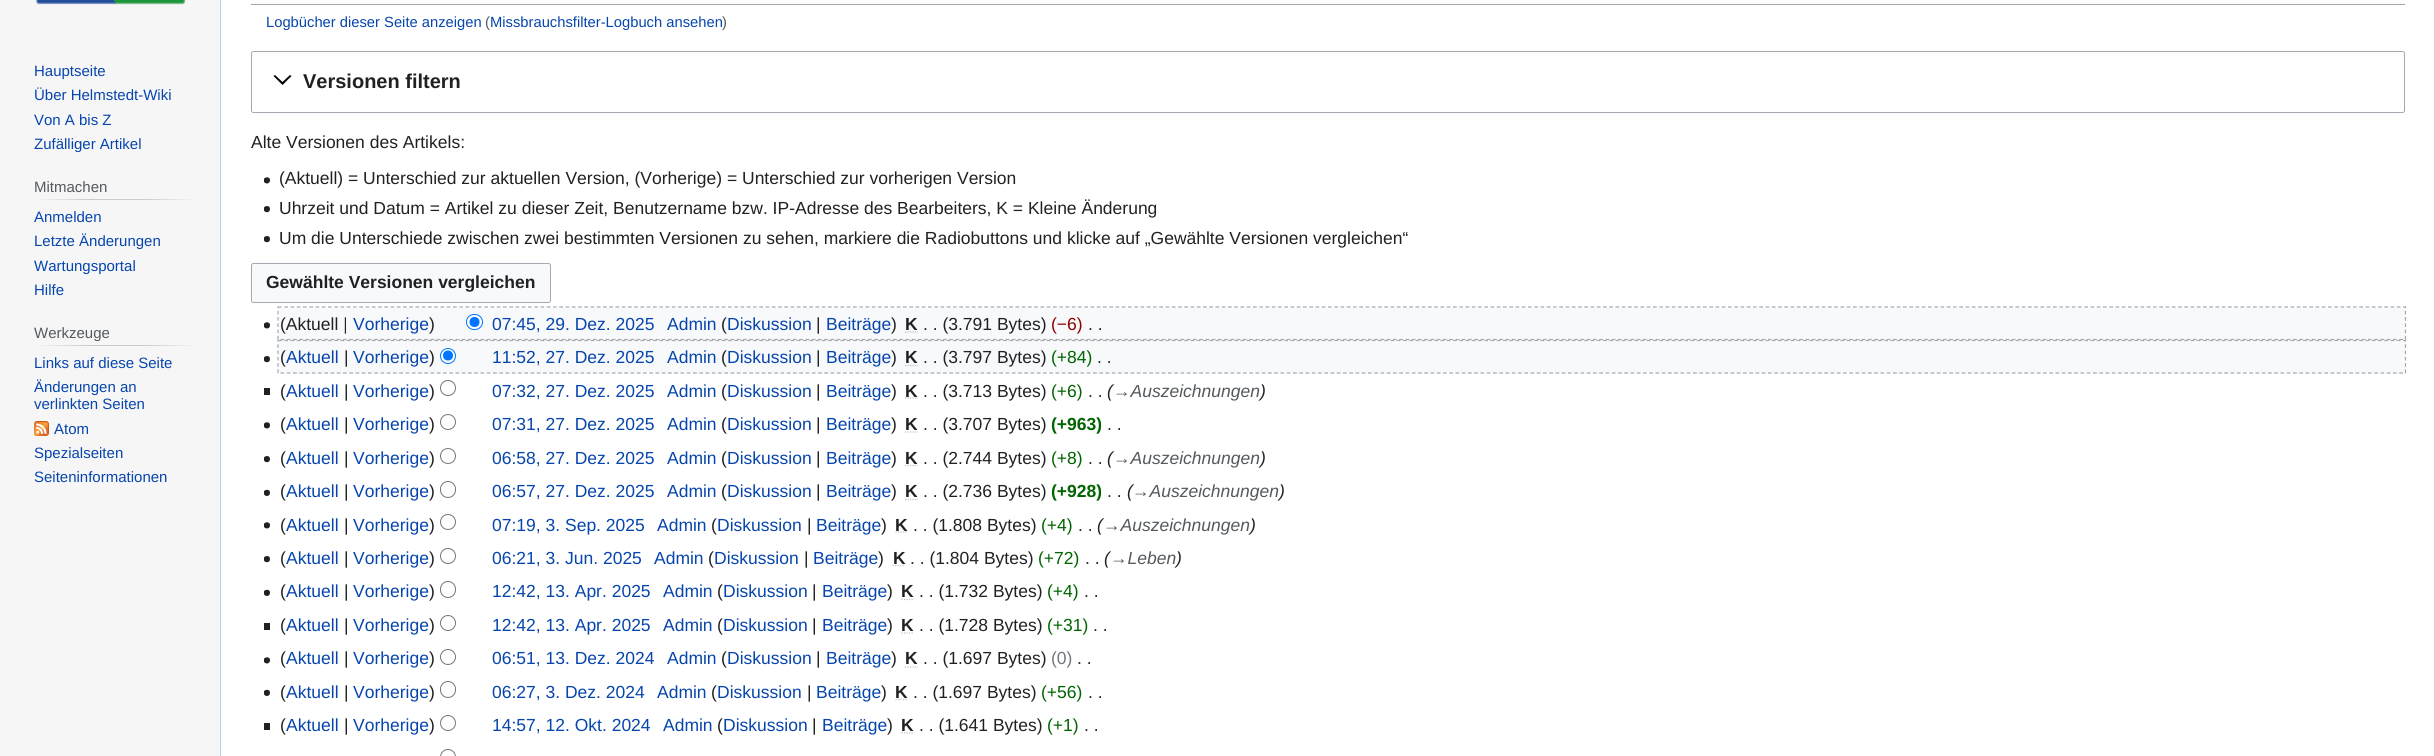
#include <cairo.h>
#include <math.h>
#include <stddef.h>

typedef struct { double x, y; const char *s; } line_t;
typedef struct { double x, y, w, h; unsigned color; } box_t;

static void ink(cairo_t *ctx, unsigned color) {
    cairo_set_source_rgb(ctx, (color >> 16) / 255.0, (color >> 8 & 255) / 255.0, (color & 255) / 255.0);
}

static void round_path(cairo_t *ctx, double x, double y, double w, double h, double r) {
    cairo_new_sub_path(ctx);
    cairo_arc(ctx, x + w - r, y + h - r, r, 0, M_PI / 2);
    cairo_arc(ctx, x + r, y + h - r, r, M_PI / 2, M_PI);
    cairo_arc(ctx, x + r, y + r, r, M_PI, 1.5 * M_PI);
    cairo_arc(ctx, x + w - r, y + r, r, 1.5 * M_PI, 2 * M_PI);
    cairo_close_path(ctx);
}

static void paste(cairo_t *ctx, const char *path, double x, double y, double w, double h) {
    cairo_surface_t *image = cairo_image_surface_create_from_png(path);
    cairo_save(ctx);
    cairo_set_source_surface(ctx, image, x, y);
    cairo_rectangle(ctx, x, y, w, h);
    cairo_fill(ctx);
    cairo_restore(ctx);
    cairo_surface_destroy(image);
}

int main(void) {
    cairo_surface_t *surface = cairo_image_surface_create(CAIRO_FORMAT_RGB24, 2434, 756);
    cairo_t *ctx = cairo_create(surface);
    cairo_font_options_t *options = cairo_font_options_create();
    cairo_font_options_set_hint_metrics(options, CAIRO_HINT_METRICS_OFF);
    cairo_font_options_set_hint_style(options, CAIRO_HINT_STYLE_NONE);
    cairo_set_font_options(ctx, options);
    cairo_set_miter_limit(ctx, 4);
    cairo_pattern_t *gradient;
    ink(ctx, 0xF6F6F6);
    cairo_paint(ctx);
    paste(ctx, "media/1.png", 36, 0, 150, 5);
    cairo_select_font_face(ctx, "Liberation Sans", CAIRO_FONT_SLANT_NORMAL, CAIRO_FONT_WEIGHT_NORMAL);
    cairo_set_font_size(ctx, 15);
    ink(ctx, 0x0645AD);
    {
        static const line_t items[] = {
            {34, 76, "Hauptseite"},
            {34, 100, "Über Helmstedt-Wiki"},
            {34, 125, "Von A bis Z"},
            {34, 149, "Zufälliger Artikel"},
        };
        for (size_t i = 0; i < sizeof items / sizeof *items; i++) {
            cairo_move_to(ctx, items[i].x, items[i].y);
            cairo_show_text(ctx, items[i].s);
        }
    }
    gradient = cairo_pattern_create_linear(34, 199, 198, 199);
    cairo_pattern_add_color_stop_rgba(gradient, 0, 0.965, 0.965, 0.965, 1);
    cairo_pattern_add_color_stop_rgba(gradient, 0.33, 0.784, 0.8, 0.82, 1);
    cairo_pattern_add_color_stop_rgba(gradient, 0.66, 0.784, 0.8, 0.82, 1);
    cairo_pattern_add_color_stop_rgba(gradient, 1, 0.965, 0.965, 0.965, 1);
    cairo_set_source(ctx, gradient);
    cairo_pattern_destroy(gradient);
    cairo_rectangle(ctx, 34, 199, 164, 1);
    cairo_fill(ctx);
    ink(ctx, 0x54595D);
    cairo_move_to(ctx, 34, 192);
    cairo_show_text(ctx, "Mitmachen");
    ink(ctx, 0x0645AD);
    {
        static const line_t items[] = {
            {34, 222, "Anmelden"},
            {34, 246, "Letzte Änderungen"},
            {34, 271, "Wartungsportal"},
            {34, 295, "Hilfe"},
        };
        for (size_t i = 0; i < sizeof items / sizeof *items; i++) {
            cairo_move_to(ctx, items[i].x, items[i].y);
            cairo_show_text(ctx, items[i].s);
        }
    }
    gradient = cairo_pattern_create_linear(34, 346, 198, 346);
    cairo_pattern_add_color_stop_rgba(gradient, 0, 0.965, 0.965, 0.965, 1);
    cairo_pattern_add_color_stop_rgba(gradient, 0.33, 0.784, 0.8, 0.82, 1);
    cairo_pattern_add_color_stop_rgba(gradient, 0.66, 0.784, 0.8, 0.82, 1);
    cairo_pattern_add_color_stop_rgba(gradient, 1, 0.965, 0.965, 0.965, 1);
    cairo_set_source(ctx, gradient);
    cairo_pattern_destroy(gradient);
    cairo_rectangle(ctx, 34, 345, 164, 1);
    cairo_fill(ctx);
    ink(ctx, 0x54595D);
    cairo_move_to(ctx, 34, 338);
    cairo_show_text(ctx, "Werkzeuge");
    ink(ctx, 0x0645AD);
    {
        static const line_t items[] = {
            {34, 368, "Links auf diese Seite"},
            {34, 392, "Änderungen an"},
            {34, 409, "verlinkten Seiten"},
        };
        for (size_t i = 0; i < sizeof items / sizeof *items; i++) {
            cairo_move_to(ctx, items[i].x, items[i].y);
            cairo_show_text(ctx, items[i].s);
        }
    }
    paste(ctx, "media/2.png", 34, 421, 15, 15);
    {
        static const line_t items[] = {
            {54, 434, "Atom"},
            {34, 458, "Spezialseiten"},
            {34, 482, "Seiteninformationen"},
        };
        for (size_t i = 0; i < sizeof items / sizeof *items; i++) {
            cairo_move_to(ctx, items[i].x, items[i].y);
            cairo_show_text(ctx, items[i].s);
        }
    }
    {
        static const box_t items[] = {
            {221, 0, 2213, 756, 0xFFFFFF},
            {220, 0, 1, 756, 0xA7D7F9},
            {251, 4, 2154, 1, 0xA2A9B1},
        };
        for (size_t i = 0; i < sizeof items / sizeof *items; i++) {
            ink(ctx, items[i].color);
            cairo_rectangle(ctx, items[i].x, items[i].y, items[i].w, items[i].h);
            cairo_fill(ctx);
        }
    }
    cairo_set_font_size(ctx, 14.75);
    ink(ctx, 0x0645AD);
    cairo_move_to(ctx, 266, 27);
    cairo_show_text(ctx, "Logbücher dieser Seite anzeigen");
    ink(ctx, 0x54595D);
    cairo_move_to(ctx, 485, 27);
    cairo_show_text(ctx, "(");
    ink(ctx, 0x0645AD);
    cairo_move_to(ctx, 490, 27);
    cairo_show_text(ctx, "Missbrauchsfilter-Logbuch ansehen");
    ink(ctx, 0x54595D);
    cairo_move_to(ctx, 722, 27);
    cairo_show_text(ctx, ")");
    round_path(ctx, 251.5, 51.5, 2153, 61, 2);
    ink(ctx, 0xA2A9B1);
    cairo_set_line_width(ctx, 1);
    cairo_stroke(ctx);
    ink(ctx, 0x000000);
    cairo_new_path(ctx);
    cairo_move_to(ctx, 290, 75);
    cairo_line_to(ctx, 282.5, 82);
    cairo_line_to(ctx, 275, 75);
    cairo_line_to(ctx, 273.5, 76);
    cairo_line_to(ctx, 282.5, 85);
    cairo_line_to(ctx, 291.5, 76);
    cairo_close_path(ctx);
    cairo_fill(ctx);
    cairo_select_font_face(ctx, "Liberation Sans", CAIRO_FONT_SLANT_NORMAL, CAIRO_FONT_WEIGHT_BOLD);
    cairo_set_font_size(ctx, 20);
    ink(ctx, 0x202122);
    cairo_move_to(ctx, 303, 88);
    cairo_show_text(ctx, "Versionen filtern");
    cairo_select_font_face(ctx, "Liberation Sans", CAIRO_FONT_SLANT_NORMAL, CAIRO_FONT_WEIGHT_NORMAL);
    cairo_set_font_size(ctx, 17.5);
    cairo_move_to(ctx, 251, 148);
    cairo_show_text(ctx, "Alte Versionen des Artikels:");
    paste(ctx, "media/3.png", 264, 177, 6, 7);
    cairo_move_to(ctx, 279, 184);
    cairo_show_text(ctx, "(Aktuell) = Unterschied zur aktuellen Version, (Vorherige) = Unterschied zur vorherigen Version");
    paste(ctx, "media/4.png", 264, 206, 6, 7);
    cairo_move_to(ctx, 279, 214);
    cairo_show_text(ctx, "Uhrzeit und Datum = Artikel zu dieser Zeit, Benutzername bzw. IP-Adresse des Bearbeiters, K = Kleine Änderung");
    paste(ctx, "media/4.png", 264, 236, 6, 7);
    cairo_move_to(ctx, 279, 244);
    cairo_show_text(ctx, "Um die Unterschiede zwischen zwei bestimmten Versionen zu sehen, markiere die Radiobuttons und klicke auf „Gewählte Versionen vergleichen“");
    ink(ctx, 0xF8F9FA);
    round_path(ctx, 251.5, 263.5, 299, 39, 2);
    cairo_fill_preserve(ctx);
    ink(ctx, 0xA2A9B1);
    cairo_stroke(ctx);
    cairo_select_font_face(ctx, "Liberation Sans", CAIRO_FONT_SLANT_NORMAL, CAIRO_FONT_WEIGHT_BOLD);
    ink(ctx, 0x202122);
    cairo_move_to(ctx, 266, 288);
    cairo_show_text(ctx, "Gewählte Versionen vergleichen");
    ink(ctx, 0xF8F9FA);
    cairo_rectangle(ctx, 279, 308, 2126, 31);
    cairo_fill(ctx);
    paste(ctx, "media/3.png", 264, 322, 6, 7);
    cairo_select_font_face(ctx, "Liberation Sans", CAIRO_FONT_SLANT_NORMAL, CAIRO_FONT_WEIGHT_NORMAL);
    ink(ctx, 0x202122);
    cairo_move_to(ctx, 280, 330);
    cairo_show_text(ctx, "(Aktuell |");
    ink(ctx, 0x0645AD);
    cairo_move_to(ctx, 353, 330);
    cairo_show_text(ctx, "Vorherige");
    ink(ctx, 0x202122);
    cairo_move_to(ctx, 429, 330);
    cairo_show_text(ctx, ")");
    ink(ctx, 0xFFFFFF);
    round_path(ctx, 466.5, 314.5, 16, 15, 7.5);
    cairo_fill_preserve(ctx);
    ink(ctx, 0x0075FF);
    cairo_stroke(ctx);
    cairo_arc(ctx, 474.5, 322, 5, 0, 2 * M_PI);
    cairo_fill(ctx);
    ink(ctx, 0x0645AD);
    cairo_move_to(ctx, 492, 330);
    cairo_show_text(ctx, "07:45, 29. Dez. 2025");
    cairo_move_to(ctx, 667, 330);
    cairo_show_text(ctx, "Admin");
    ink(ctx, 0x202122);
    cairo_move_to(ctx, 721, 330);
    cairo_show_text(ctx, "(");
    ink(ctx, 0x0645AD);
    cairo_move_to(ctx, 727, 330);
    cairo_show_text(ctx, "Diskussion");
    ink(ctx, 0x202122);
    cairo_move_to(ctx, 816, 330);
    cairo_show_text(ctx, "|");
    ink(ctx, 0x0645AD);
    cairo_move_to(ctx, 826, 330);
    cairo_show_text(ctx, "Beiträge");
    ink(ctx, 0x202122);
    cairo_move_to(ctx, 891, 330);
    cairo_show_text(ctx, ")");
    cairo_select_font_face(ctx, "Liberation Sans", CAIRO_FONT_SLANT_NORMAL, CAIRO_FONT_WEIGHT_BOLD);
    cairo_move_to(ctx, 905, 330);
    cairo_show_text(ctx, "K");
    cairo_new_path(ctx);
    cairo_move_to(ctx, 905, 332);
    cairo_line_to(ctx, 918, 332);
    ink(ctx, 0xBCBDBD);
    cairo_set_line_width(ctx, 1.2);
    cairo_set_dash(ctx, (double[]){1.25, 1.25}, 2, 0);
    cairo_stroke(ctx);
    cairo_select_font_face(ctx, "Liberation Sans", CAIRO_FONT_SLANT_NORMAL, CAIRO_FONT_WEIGHT_NORMAL);
    ink(ctx, 0x202122);
    cairo_move_to(ctx, 923, 330);
    cairo_show_text(ctx, ". . (3.791 Bytes)");
    ink(ctx, 0x8B0000);
    cairo_move_to(ctx, 1051, 330);
    cairo_show_text(ctx, "(−6)");
    ink(ctx, 0x202122);
    cairo_move_to(ctx, 1088, 330);
    cairo_show_text(ctx, ". .");
    cairo_new_path(ctx);
    cairo_move_to(ctx, 278, 307);
    cairo_line_to(ctx, 2405.5, 307);
    cairo_line_to(ctx, 2405.5, 339.5);
    cairo_line_to(ctx, 278, 339.5);
    cairo_close_path(ctx);
    ink(ctx, 0xA2A9B1);
    cairo_set_dash(ctx, (double[]){3.75, 2.5}, 2, 0);
    cairo_stroke(ctx);
    ink(ctx, 0xF8F9FA);
    cairo_rectangle(ctx, 279, 341, 2126, 32);
    cairo_fill(ctx);
    paste(ctx, "media/4.png", 264, 356, 6, 7);
    ink(ctx, 0x202122);
    cairo_move_to(ctx, 280, 363);
    cairo_show_text(ctx, "(");
    ink(ctx, 0x0645AD);
    cairo_move_to(ctx, 286, 363);
    cairo_show_text(ctx, "Aktuell");
    ink(ctx, 0x202122);
    cairo_move_to(ctx, 344, 363);
    cairo_show_text(ctx, "|");
    ink(ctx, 0x0645AD);
    cairo_move_to(ctx, 353, 363);
    cairo_show_text(ctx, "Vorherige");
    ink(ctx, 0x202122);
    cairo_move_to(ctx, 429, 363);
    cairo_show_text(ctx, ")");
    ink(ctx, 0xFFFFFF);
    cairo_new_path(ctx);
    cairo_arc(ctx, 448, 356, 7.5, 0, 2 * M_PI);
    cairo_fill_preserve(ctx);
    ink(ctx, 0x0075FF);
    cairo_set_line_width(ctx, 1);
    cairo_set_dash(ctx, NULL, 0, 0);
    cairo_stroke(ctx);
    cairo_arc(ctx, 448, 355.5, 5, 0, 2 * M_PI);
    cairo_fill(ctx);
    ink(ctx, 0x0645AD);
    cairo_move_to(ctx, 492, 363);
    cairo_show_text(ctx, "11:52, 27. Dez. 2025");
    cairo_move_to(ctx, 667, 363);
    cairo_show_text(ctx, "Admin");
    ink(ctx, 0x202122);
    cairo_move_to(ctx, 721, 363);
    cairo_show_text(ctx, "(");
    ink(ctx, 0x0645AD);
    cairo_move_to(ctx, 727, 363);
    cairo_show_text(ctx, "Diskussion");
    ink(ctx, 0x202122);
    cairo_move_to(ctx, 816, 363);
    cairo_show_text(ctx, "|");
    ink(ctx, 0x0645AD);
    cairo_move_to(ctx, 826, 363);
    cairo_show_text(ctx, "Beiträge");
    ink(ctx, 0x202122);
    cairo_move_to(ctx, 891, 363);
    cairo_show_text(ctx, ")");
    cairo_select_font_face(ctx, "Liberation Sans", CAIRO_FONT_SLANT_NORMAL, CAIRO_FONT_WEIGHT_BOLD);
    cairo_move_to(ctx, 905, 363);
    cairo_show_text(ctx, "K");
    cairo_new_path(ctx);
    cairo_move_to(ctx, 905, 365.5);
    cairo_line_to(ctx, 918, 365.5);
    ink(ctx, 0xBCBDBD);
    cairo_set_line_width(ctx, 1.2);
    cairo_set_dash(ctx, (double[]){1.25, 1.25}, 2, 0);
    cairo_stroke(ctx);
    cairo_select_font_face(ctx, "Liberation Sans", CAIRO_FONT_SLANT_NORMAL, CAIRO_FONT_WEIGHT_NORMAL);
    ink(ctx, 0x202122);
    cairo_move_to(ctx, 923, 363);
    cairo_show_text(ctx, ". . (3.797 Bytes)");
    ink(ctx, 0x006400);
    cairo_move_to(ctx, 1051, 363);
    cairo_show_text(ctx, "(+84)");
    ink(ctx, 0x202122);
    cairo_move_to(ctx, 1097, 363);
    cairo_show_text(ctx, ". .");
    cairo_new_path(ctx);
    cairo_move_to(ctx, 278, 340.5);
    cairo_line_to(ctx, 2405.5, 340.5);
    cairo_line_to(ctx, 2405.5, 373);
    cairo_line_to(ctx, 278, 373);
    cairo_close_path(ctx);
    ink(ctx, 0xA2A9B1);
    cairo_set_dash(ctx, (double[]){3.75, 2.5}, 2, 0);
    cairo_stroke(ctx);
    ink(ctx, 0x202122);
    cairo_rectangle(ctx, 264, 388, 6, 7);
    cairo_fill(ctx);
    cairo_move_to(ctx, 280, 397);
    cairo_show_text(ctx, "(");
    ink(ctx, 0x0645AD);
    cairo_move_to(ctx, 286, 397);
    cairo_show_text(ctx, "Aktuell");
    ink(ctx, 0x202122);
    cairo_move_to(ctx, 344, 397);
    cairo_show_text(ctx, "|");
    ink(ctx, 0x0645AD);
    cairo_move_to(ctx, 353, 397);
    cairo_show_text(ctx, "Vorherige");
    ink(ctx, 0x202122);
    cairo_move_to(ctx, 429, 397);
    cairo_show_text(ctx, ")");
    cairo_new_path(ctx);
    cairo_arc(ctx, 448, 388, 7.5, 0, 2 * M_PI);
    ink(ctx, 0x767676);
    cairo_set_line_width(ctx, 1);
    cairo_set_dash(ctx, NULL, 0, 0);
    cairo_stroke(ctx);
    ink(ctx, 0x0645AD);
    cairo_move_to(ctx, 492, 397);
    cairo_show_text(ctx, "07:32, 27. Dez. 2025");
    cairo_move_to(ctx, 667, 397);
    cairo_show_text(ctx, "Admin");
    ink(ctx, 0x202122);
    cairo_move_to(ctx, 721, 397);
    cairo_show_text(ctx, "(");
    ink(ctx, 0x0645AD);
    cairo_move_to(ctx, 727, 397);
    cairo_show_text(ctx, "Diskussion");
    ink(ctx, 0x202122);
    cairo_move_to(ctx, 816, 397);
    cairo_show_text(ctx, "|");
    ink(ctx, 0x0645AD);
    cairo_move_to(ctx, 826, 397);
    cairo_show_text(ctx, "Beiträge");
    ink(ctx, 0x202122);
    cairo_move_to(ctx, 891, 397);
    cairo_show_text(ctx, ")");
    cairo_select_font_face(ctx, "Liberation Sans", CAIRO_FONT_SLANT_NORMAL, CAIRO_FONT_WEIGHT_BOLD);
    cairo_move_to(ctx, 905, 397);
    cairo_show_text(ctx, "K");
    cairo_new_path(ctx);
    cairo_move_to(ctx, 905, 398);
    cairo_line_to(ctx, 918, 398);
    ink(ctx, 0xC0C0C0);
    cairo_set_line_width(ctx, 1.2);
    cairo_set_dash(ctx, (double[]){1.25, 1.25}, 2, 0);
    cairo_stroke(ctx);
    cairo_select_font_face(ctx, "Liberation Sans", CAIRO_FONT_SLANT_NORMAL, CAIRO_FONT_WEIGHT_NORMAL);
    ink(ctx, 0x202122);
    cairo_move_to(ctx, 923, 397);
    cairo_show_text(ctx, ". . (3.713 Bytes)");
    ink(ctx, 0x006400);
    cairo_move_to(ctx, 1051, 397);
    cairo_show_text(ctx, "(+6)");
    ink(ctx, 0x202122);
    cairo_move_to(ctx, 1088, 397);
    cairo_show_text(ctx, ". .");
    cairo_select_font_face(ctx, "Liberation Sans", CAIRO_FONT_SLANT_ITALIC, CAIRO_FONT_WEIGHT_NORMAL);
    cairo_move_to(ctx, 1107, 397);
    cairo_show_text(ctx, "(");
    ink(ctx, 0x54595D);
    cairo_move_to(ctx, 1113, 397);
    cairo_show_text(ctx, "→Auszeichnungen");
    ink(ctx, 0x202122);
    cairo_move_to(ctx, 1260, 397);
    cairo_show_text(ctx, ")");
    paste(ctx, "media/3.png", 264, 422, 6, 7);
    cairo_select_font_face(ctx, "Liberation Sans", CAIRO_FONT_SLANT_NORMAL, CAIRO_FONT_WEIGHT_NORMAL);
    cairo_move_to(ctx, 280, 430);
    cairo_show_text(ctx, "(");
    ink(ctx, 0x0645AD);
    cairo_move_to(ctx, 286, 430);
    cairo_show_text(ctx, "Aktuell");
    ink(ctx, 0x202122);
    cairo_move_to(ctx, 344, 430);
    cairo_show_text(ctx, "|");
    ink(ctx, 0x0645AD);
    cairo_move_to(ctx, 353, 430);
    cairo_show_text(ctx, "Vorherige");
    ink(ctx, 0x202122);
    cairo_move_to(ctx, 429, 430);
    cairo_show_text(ctx, ")");
    cairo_new_path(ctx);
    cairo_arc(ctx, 448, 422, 7.5, 0, 2 * M_PI);
    ink(ctx, 0x767676);
    cairo_set_line_width(ctx, 1);
    cairo_set_dash(ctx, NULL, 0, 0);
    cairo_stroke(ctx);
    ink(ctx, 0x0645AD);
    cairo_move_to(ctx, 492, 430);
    cairo_show_text(ctx, "07:31, 27. Dez. 2025");
    cairo_move_to(ctx, 667, 430);
    cairo_show_text(ctx, "Admin");
    ink(ctx, 0x202122);
    cairo_move_to(ctx, 721, 430);
    cairo_show_text(ctx, "(");
    ink(ctx, 0x0645AD);
    cairo_move_to(ctx, 727, 430);
    cairo_show_text(ctx, "Diskussion");
    ink(ctx, 0x202122);
    cairo_move_to(ctx, 816, 430);
    cairo_show_text(ctx, "|");
    ink(ctx, 0x0645AD);
    cairo_move_to(ctx, 826, 430);
    cairo_show_text(ctx, "Beiträge");
    ink(ctx, 0x202122);
    cairo_move_to(ctx, 891, 430);
    cairo_show_text(ctx, ")");
    cairo_select_font_face(ctx, "Liberation Sans", CAIRO_FONT_SLANT_NORMAL, CAIRO_FONT_WEIGHT_BOLD);
    cairo_move_to(ctx, 905, 430);
    cairo_show_text(ctx, "K");
    cairo_new_path(ctx);
    cairo_move_to(ctx, 905, 432);
    cairo_line_to(ctx, 918, 432);
    ink(ctx, 0xC0C0C0);
    cairo_set_line_width(ctx, 1.2);
    cairo_set_dash(ctx, (double[]){1.25, 1.25}, 2, 0);
    cairo_stroke(ctx);
    cairo_select_font_face(ctx, "Liberation Sans", CAIRO_FONT_SLANT_NORMAL, CAIRO_FONT_WEIGHT_NORMAL);
    ink(ctx, 0x202122);
    cairo_move_to(ctx, 923, 430);
    cairo_show_text(ctx, ". . (3.707 Bytes)");
    cairo_select_font_face(ctx, "Liberation Sans", CAIRO_FONT_SLANT_NORMAL, CAIRO_FONT_WEIGHT_BOLD);
    ink(ctx, 0x006400);
    cairo_move_to(ctx, 1051, 430);
    cairo_show_text(ctx, "(+963)");
    cairo_select_font_face(ctx, "Liberation Sans", CAIRO_FONT_SLANT_NORMAL, CAIRO_FONT_WEIGHT_NORMAL);
    ink(ctx, 0x202122);
    cairo_move_to(ctx, 1107, 430);
    cairo_show_text(ctx, ". .");
    paste(ctx, "media/4.png", 264, 456, 6, 7);
    cairo_move_to(ctx, 280, 464);
    cairo_show_text(ctx, "(");
    ink(ctx, 0x0645AD);
    cairo_move_to(ctx, 286, 464);
    cairo_show_text(ctx, "Aktuell");
    ink(ctx, 0x202122);
    cairo_move_to(ctx, 344, 464);
    cairo_show_text(ctx, "|");
    ink(ctx, 0x0645AD);
    cairo_move_to(ctx, 353, 464);
    cairo_show_text(ctx, "Vorherige");
    ink(ctx, 0x202122);
    cairo_move_to(ctx, 429, 464);
    cairo_show_text(ctx, ")");
    cairo_new_path(ctx);
    cairo_arc(ctx, 448, 456, 7.5, 0, 2 * M_PI);
    ink(ctx, 0x767676);
    cairo_set_line_width(ctx, 1);
    cairo_set_dash(ctx, NULL, 0, 0);
    cairo_stroke(ctx);
    ink(ctx, 0x0645AD);
    cairo_move_to(ctx, 492, 464);
    cairo_show_text(ctx, "06:58, 27. Dez. 2025");
    cairo_move_to(ctx, 667, 464);
    cairo_show_text(ctx, "Admin");
    ink(ctx, 0x202122);
    cairo_move_to(ctx, 721, 464);
    cairo_show_text(ctx, "(");
    ink(ctx, 0x0645AD);
    cairo_move_to(ctx, 727, 464);
    cairo_show_text(ctx, "Diskussion");
    ink(ctx, 0x202122);
    cairo_move_to(ctx, 816, 464);
    cairo_show_text(ctx, "|");
    ink(ctx, 0x0645AD);
    cairo_move_to(ctx, 826, 464);
    cairo_show_text(ctx, "Beiträge");
    ink(ctx, 0x202122);
    cairo_move_to(ctx, 891, 464);
    cairo_show_text(ctx, ")");
    cairo_select_font_face(ctx, "Liberation Sans", CAIRO_FONT_SLANT_NORMAL, CAIRO_FONT_WEIGHT_BOLD);
    cairo_move_to(ctx, 905, 464);
    cairo_show_text(ctx, "K");
    cairo_new_path(ctx);
    cairo_move_to(ctx, 905, 465.5);
    cairo_line_to(ctx, 918, 465.5);
    ink(ctx, 0xC0C0C0);
    cairo_set_line_width(ctx, 1.2);
    cairo_set_dash(ctx, (double[]){1.25, 1.25}, 2, 0);
    cairo_stroke(ctx);
    cairo_select_font_face(ctx, "Liberation Sans", CAIRO_FONT_SLANT_NORMAL, CAIRO_FONT_WEIGHT_NORMAL);
    ink(ctx, 0x202122);
    cairo_move_to(ctx, 923, 464);
    cairo_show_text(ctx, ". . (2.744 Bytes)");
    ink(ctx, 0x006400);
    cairo_move_to(ctx, 1051, 464);
    cairo_show_text(ctx, "(+8)");
    ink(ctx, 0x202122);
    cairo_move_to(ctx, 1088, 464);
    cairo_show_text(ctx, ". .");
    cairo_select_font_face(ctx, "Liberation Sans", CAIRO_FONT_SLANT_ITALIC, CAIRO_FONT_WEIGHT_NORMAL);
    cairo_move_to(ctx, 1107, 464);
    cairo_show_text(ctx, "(");
    ink(ctx, 0x54595D);
    cairo_move_to(ctx, 1113, 464);
    cairo_show_text(ctx, "→Auszeichnungen");
    ink(ctx, 0x202122);
    cairo_move_to(ctx, 1260, 464);
    cairo_show_text(ctx, ")");
    paste(ctx, "media/5.png", 264, 489, 6, 7);
    cairo_select_font_face(ctx, "Liberation Sans", CAIRO_FONT_SLANT_NORMAL, CAIRO_FONT_WEIGHT_NORMAL);
    cairo_move_to(ctx, 280, 497);
    cairo_show_text(ctx, "(");
    ink(ctx, 0x0645AD);
    cairo_move_to(ctx, 286, 497);
    cairo_show_text(ctx, "Aktuell");
    ink(ctx, 0x202122);
    cairo_move_to(ctx, 344, 497);
    cairo_show_text(ctx, "|");
    ink(ctx, 0x0645AD);
    cairo_move_to(ctx, 353, 497);
    cairo_show_text(ctx, "Vorherige");
    ink(ctx, 0x202122);
    cairo_move_to(ctx, 429, 497);
    cairo_show_text(ctx, ")");
    round_path(ctx, 440.5, 481.5, 15, 16, 7.5);
    ink(ctx, 0x767676);
    cairo_set_line_width(ctx, 1);
    cairo_set_dash(ctx, NULL, 0, 0);
    cairo_stroke(ctx);
    ink(ctx, 0x0645AD);
    cairo_move_to(ctx, 492, 497);
    cairo_show_text(ctx, "06:57, 27. Dez. 2025");
    cairo_move_to(ctx, 667, 497);
    cairo_show_text(ctx, "Admin");
    ink(ctx, 0x202122);
    cairo_move_to(ctx, 721, 497);
    cairo_show_text(ctx, "(");
    ink(ctx, 0x0645AD);
    cairo_move_to(ctx, 727, 497);
    cairo_show_text(ctx, "Diskussion");
    ink(ctx, 0x202122);
    cairo_move_to(ctx, 816, 497);
    cairo_show_text(ctx, "|");
    ink(ctx, 0x0645AD);
    cairo_move_to(ctx, 826, 497);
    cairo_show_text(ctx, "Beiträge");
    ink(ctx, 0x202122);
    cairo_move_to(ctx, 891, 497);
    cairo_show_text(ctx, ")");
    cairo_select_font_face(ctx, "Liberation Sans", CAIRO_FONT_SLANT_NORMAL, CAIRO_FONT_WEIGHT_BOLD);
    cairo_move_to(ctx, 905, 497);
    cairo_show_text(ctx, "K");
    cairo_new_path(ctx);
    cairo_move_to(ctx, 905, 499.5);
    cairo_line_to(ctx, 918, 499.5);
    ink(ctx, 0xC0C0C0);
    cairo_set_line_width(ctx, 1.2);
    cairo_set_dash(ctx, (double[]){1.25, 1.25}, 2, 0);
    cairo_stroke(ctx);
    cairo_select_font_face(ctx, "Liberation Sans", CAIRO_FONT_SLANT_NORMAL, CAIRO_FONT_WEIGHT_NORMAL);
    ink(ctx, 0x202122);
    cairo_move_to(ctx, 923, 497);
    cairo_show_text(ctx, ". . (2.736 Bytes)");
    cairo_select_font_face(ctx, "Liberation Sans", CAIRO_FONT_SLANT_NORMAL, CAIRO_FONT_WEIGHT_BOLD);
    ink(ctx, 0x006400);
    cairo_move_to(ctx, 1051, 497);
    cairo_show_text(ctx, "(+928)");
    cairo_select_font_face(ctx, "Liberation Sans", CAIRO_FONT_SLANT_NORMAL, CAIRO_FONT_WEIGHT_NORMAL);
    ink(ctx, 0x202122);
    cairo_move_to(ctx, 1107, 497);
    cairo_show_text(ctx, ". .");
    cairo_select_font_face(ctx, "Liberation Sans", CAIRO_FONT_SLANT_ITALIC, CAIRO_FONT_WEIGHT_NORMAL);
    cairo_move_to(ctx, 1127, 497);
    cairo_show_text(ctx, "(");
    ink(ctx, 0x54595D);
    cairo_move_to(ctx, 1132, 497);
    cairo_show_text(ctx, "→Auszeichnungen");
    ink(ctx, 0x202122);
    cairo_move_to(ctx, 1279, 497);
    cairo_show_text(ctx, ")");
    paste(ctx, "media/3.png", 264, 522, 6, 7);
    cairo_select_font_face(ctx, "Liberation Sans", CAIRO_FONT_SLANT_NORMAL, CAIRO_FONT_WEIGHT_NORMAL);
    cairo_move_to(ctx, 280, 531);
    cairo_show_text(ctx, "(");
    ink(ctx, 0x0645AD);
    cairo_move_to(ctx, 286, 531);
    cairo_show_text(ctx, "Aktuell");
    ink(ctx, 0x202122);
    cairo_move_to(ctx, 344, 531);
    cairo_show_text(ctx, "|");
    ink(ctx, 0x0645AD);
    cairo_move_to(ctx, 353, 531);
    cairo_show_text(ctx, "Vorherige");
    ink(ctx, 0x202122);
    cairo_move_to(ctx, 429, 531);
    cairo_show_text(ctx, ")");
    cairo_new_path(ctx);
    cairo_arc(ctx, 448, 522, 7.5, 0, 2 * M_PI);
    ink(ctx, 0x767676);
    cairo_set_line_width(ctx, 1);
    cairo_set_dash(ctx, NULL, 0, 0);
    cairo_stroke(ctx);
    ink(ctx, 0x0645AD);
    cairo_move_to(ctx, 492, 531);
    cairo_show_text(ctx, "07:19, 3. Sep. 2025");
    cairo_move_to(ctx, 657, 531);
    cairo_show_text(ctx, "Admin");
    ink(ctx, 0x202122);
    cairo_move_to(ctx, 711, 531);
    cairo_show_text(ctx, "(");
    ink(ctx, 0x0645AD);
    cairo_move_to(ctx, 717, 531);
    cairo_show_text(ctx, "Diskussion");
    ink(ctx, 0x202122);
    cairo_move_to(ctx, 807, 531);
    cairo_show_text(ctx, "|");
    ink(ctx, 0x0645AD);
    cairo_move_to(ctx, 816, 531);
    cairo_show_text(ctx, "Beiträge");
    ink(ctx, 0x202122);
    cairo_move_to(ctx, 881, 531);
    cairo_show_text(ctx, ")");
    cairo_select_font_face(ctx, "Liberation Sans", CAIRO_FONT_SLANT_NORMAL, CAIRO_FONT_WEIGHT_BOLD);
    cairo_move_to(ctx, 895, 531);
    cairo_show_text(ctx, "K");
    cairo_new_path(ctx);
    cairo_move_to(ctx, 895.5, 532);
    cairo_line_to(ctx, 908, 532);
    ink(ctx, 0xC0C0C0);
    cairo_set_line_width(ctx, 1.2);
    cairo_set_dash(ctx, (double[]){1.25, 1.25}, 2, 0);
    cairo_stroke(ctx);
    cairo_select_font_face(ctx, "Liberation Sans", CAIRO_FONT_SLANT_NORMAL, CAIRO_FONT_WEIGHT_NORMAL);
    ink(ctx, 0x202122);
    cairo_move_to(ctx, 913, 531);
    cairo_show_text(ctx, ". . (1.808 Bytes)");
    ink(ctx, 0x006400);
    cairo_move_to(ctx, 1041, 531);
    cairo_show_text(ctx, "(+4)");
    ink(ctx, 0x202122);
    cairo_move_to(ctx, 1078, 531);
    cairo_show_text(ctx, ". .");
    cairo_select_font_face(ctx, "Liberation Sans", CAIRO_FONT_SLANT_ITALIC, CAIRO_FONT_WEIGHT_NORMAL);
    cairo_move_to(ctx, 1097, 531);
    cairo_show_text(ctx, "(");
    ink(ctx, 0x54595D);
    cairo_move_to(ctx, 1103, 531);
    cairo_show_text(ctx, "→Auszeichnungen");
    ink(ctx, 0x202122);
    cairo_move_to(ctx, 1250, 531);
    cairo_show_text(ctx, ")");
    paste(ctx, "media/4.png", 264, 556, 6, 7);
    cairo_select_font_face(ctx, "Liberation Sans", CAIRO_FONT_SLANT_NORMAL, CAIRO_FONT_WEIGHT_NORMAL);
    cairo_move_to(ctx, 280, 564);
    cairo_show_text(ctx, "(");
    ink(ctx, 0x0645AD);
    cairo_move_to(ctx, 286, 564);
    cairo_show_text(ctx, "Aktuell");
    ink(ctx, 0x202122);
    cairo_move_to(ctx, 344, 564);
    cairo_show_text(ctx, "|");
    ink(ctx, 0x0645AD);
    cairo_move_to(ctx, 353, 564);
    cairo_show_text(ctx, "Vorherige");
    ink(ctx, 0x202122);
    cairo_move_to(ctx, 429, 564);
    cairo_show_text(ctx, ")");
    cairo_new_path(ctx);
    cairo_arc(ctx, 448, 556, 7.5, 0, 2 * M_PI);
    ink(ctx, 0x767676);
    cairo_set_line_width(ctx, 1);
    cairo_set_dash(ctx, NULL, 0, 0);
    cairo_stroke(ctx);
    ink(ctx, 0x0645AD);
    cairo_move_to(ctx, 492, 564);
    cairo_show_text(ctx, "06:21, 3. Jun. 2025");
    cairo_move_to(ctx, 654, 564);
    cairo_show_text(ctx, "Admin");
    ink(ctx, 0x202122);
    cairo_move_to(ctx, 708, 564);
    cairo_show_text(ctx, "(");
    ink(ctx, 0x0645AD);
    cairo_move_to(ctx, 714, 564);
    cairo_show_text(ctx, "Diskussion");
    ink(ctx, 0x202122);
    cairo_move_to(ctx, 804, 564);
    cairo_show_text(ctx, "|");
    ink(ctx, 0x0645AD);
    cairo_move_to(ctx, 813, 564);
    cairo_show_text(ctx, "Beiträge");
    ink(ctx, 0x202122);
    cairo_move_to(ctx, 878, 564);
    cairo_show_text(ctx, ")");
    cairo_select_font_face(ctx, "Liberation Sans", CAIRO_FONT_SLANT_NORMAL, CAIRO_FONT_WEIGHT_BOLD);
    cairo_move_to(ctx, 893, 564);
    cairo_show_text(ctx, "K");
    cairo_new_path(ctx);
    cairo_move_to(ctx, 892.5, 565.5);
    cairo_line_to(ctx, 905, 565.5);
    ink(ctx, 0xC0C0C0);
    cairo_set_line_width(ctx, 1.2);
    cairo_set_dash(ctx, (double[]){1.25, 1.25}, 2, 0);
    cairo_stroke(ctx);
    cairo_select_font_face(ctx, "Liberation Sans", CAIRO_FONT_SLANT_NORMAL, CAIRO_FONT_WEIGHT_NORMAL);
    ink(ctx, 0x202122);
    cairo_move_to(ctx, 910, 564);
    cairo_show_text(ctx, ". . (1.804 Bytes)");
    ink(ctx, 0x006400);
    cairo_move_to(ctx, 1038, 564);
    cairo_show_text(ctx, "(+72)");
    ink(ctx, 0x202122);
    cairo_move_to(ctx, 1085, 564);
    cairo_show_text(ctx, ". .");
    cairo_select_font_face(ctx, "Liberation Sans", CAIRO_FONT_SLANT_ITALIC, CAIRO_FONT_WEIGHT_NORMAL);
    cairo_move_to(ctx, 1104, 564);
    cairo_show_text(ctx, "(");
    ink(ctx, 0x54595D);
    cairo_move_to(ctx, 1110, 564);
    cairo_show_text(ctx, "→Leben");
    ink(ctx, 0x202122);
    cairo_move_to(ctx, 1176, 564);
    cairo_show_text(ctx, ")");
    paste(ctx, "media/6.png", 264, 589, 6, 7);
    cairo_select_font_face(ctx, "Liberation Sans", CAIRO_FONT_SLANT_NORMAL, CAIRO_FONT_WEIGHT_NORMAL);
    cairo_move_to(ctx, 280, 597);
    cairo_show_text(ctx, "(");
    ink(ctx, 0x0645AD);
    cairo_move_to(ctx, 286, 597);
    cairo_show_text(ctx, "Aktuell");
    ink(ctx, 0x202122);
    cairo_move_to(ctx, 344, 597);
    cairo_show_text(ctx, "|");
    ink(ctx, 0x0645AD);
    cairo_move_to(ctx, 353, 597);
    cairo_show_text(ctx, "Vorherige");
    ink(ctx, 0x202122);
    cairo_move_to(ctx, 429, 597);
    cairo_show_text(ctx, ")");
    round_path(ctx, 440.5, 581.5, 15, 16, 7.5);
    ink(ctx, 0x767676);
    cairo_set_line_width(ctx, 1);
    cairo_set_dash(ctx, NULL, 0, 0);
    cairo_stroke(ctx);
    ink(ctx, 0x0645AD);
    cairo_move_to(ctx, 492, 597);
    cairo_show_text(ctx, "12:42, 13. Apr. 2025");
    cairo_move_to(ctx, 663, 597);
    cairo_show_text(ctx, "Admin");
    ink(ctx, 0x202122);
    cairo_move_to(ctx, 717, 597);
    cairo_show_text(ctx, "(");
    ink(ctx, 0x0645AD);
    cairo_move_to(ctx, 723, 597);
    cairo_show_text(ctx, "Diskussion");
    ink(ctx, 0x202122);
    cairo_move_to(ctx, 812, 597);
    cairo_show_text(ctx, "|");
    ink(ctx, 0x0645AD);
    cairo_move_to(ctx, 822, 597);
    cairo_show_text(ctx, "Beiträge");
    ink(ctx, 0x202122);
    cairo_move_to(ctx, 887, 597);
    cairo_show_text(ctx, ")");
    cairo_select_font_face(ctx, "Liberation Sans", CAIRO_FONT_SLANT_NORMAL, CAIRO_FONT_WEIGHT_BOLD);
    cairo_move_to(ctx, 901, 597);
    cairo_show_text(ctx, "K");
    cairo_new_path(ctx);
    cairo_move_to(ctx, 901.5, 599.5);
    cairo_line_to(ctx, 914, 599.5);
    ink(ctx, 0xC0C0C0);
    cairo_set_line_width(ctx, 1.2);
    cairo_set_dash(ctx, (double[]){1.25, 1.25}, 2, 0);
    cairo_stroke(ctx);
    cairo_select_font_face(ctx, "Liberation Sans", CAIRO_FONT_SLANT_NORMAL, CAIRO_FONT_WEIGHT_NORMAL);
    ink(ctx, 0x202122);
    cairo_move_to(ctx, 919, 597);
    cairo_show_text(ctx, ". . (1.732 Bytes)");
    ink(ctx, 0x006400);
    cairo_move_to(ctx, 1047, 597);
    cairo_show_text(ctx, "(+4)");
    ink(ctx, 0x202122);
    cairo_move_to(ctx, 1084, 597);
    cairo_show_text(ctx, ". .");
    cairo_rectangle(ctx, 264, 623, 6, 7);
    cairo_fill(ctx);
    cairo_move_to(ctx, 280, 631);
    cairo_show_text(ctx, "(");
    ink(ctx, 0x0645AD);
    cairo_move_to(ctx, 286, 631);
    cairo_show_text(ctx, "Aktuell");
    ink(ctx, 0x202122);
    cairo_move_to(ctx, 344, 631);
    cairo_show_text(ctx, "|");
    ink(ctx, 0x0645AD);
    cairo_move_to(ctx, 353, 631);
    cairo_show_text(ctx, "Vorherige");
    ink(ctx, 0x202122);
    cairo_move_to(ctx, 429, 631);
    cairo_show_text(ctx, ")");
    cairo_new_path(ctx);
    cairo_arc(ctx, 448, 623, 7.5, 0, 2 * M_PI);
    ink(ctx, 0x767676);
    cairo_set_line_width(ctx, 1);
    cairo_set_dash(ctx, NULL, 0, 0);
    cairo_stroke(ctx);
    ink(ctx, 0x0645AD);
    cairo_move_to(ctx, 492, 631);
    cairo_show_text(ctx, "12:42, 13. Apr. 2025");
    cairo_move_to(ctx, 663, 631);
    cairo_show_text(ctx, "Admin");
    ink(ctx, 0x202122);
    cairo_move_to(ctx, 717, 631);
    cairo_show_text(ctx, "(");
    ink(ctx, 0x0645AD);
    cairo_move_to(ctx, 723, 631);
    cairo_show_text(ctx, "Diskussion");
    ink(ctx, 0x202122);
    cairo_move_to(ctx, 812, 631);
    cairo_show_text(ctx, "|");
    ink(ctx, 0x0645AD);
    cairo_move_to(ctx, 822, 631);
    cairo_show_text(ctx, "Beiträge");
    ink(ctx, 0x202122);
    cairo_move_to(ctx, 887, 631);
    cairo_show_text(ctx, ")");
    cairo_select_font_face(ctx, "Liberation Sans", CAIRO_FONT_SLANT_NORMAL, CAIRO_FONT_WEIGHT_BOLD);
    cairo_move_to(ctx, 901, 631);
    cairo_show_text(ctx, "K");
    cairo_new_path(ctx);
    cairo_move_to(ctx, 901.5, 633);
    cairo_line_to(ctx, 914, 633);
    ink(ctx, 0xC0C0C0);
    cairo_set_line_width(ctx, 1.2);
    cairo_set_dash(ctx, (double[]){1.25, 1.25}, 2, 0);
    cairo_stroke(ctx);
    cairo_select_font_face(ctx, "Liberation Sans", CAIRO_FONT_SLANT_NORMAL, CAIRO_FONT_WEIGHT_NORMAL);
    ink(ctx, 0x202122);
    cairo_move_to(ctx, 919, 631);
    cairo_show_text(ctx, ". . (1.728 Bytes)");
    ink(ctx, 0x006400);
    cairo_move_to(ctx, 1047, 631);
    cairo_show_text(ctx, "(+31)");
    ink(ctx, 0x202122);
    cairo_move_to(ctx, 1093, 631);
    cairo_show_text(ctx, ". .");
    paste(ctx, "media/3.png", 264, 657, 6, 7);
    cairo_move_to(ctx, 280, 664);
    cairo_show_text(ctx, "(");
    ink(ctx, 0x0645AD);
    cairo_move_to(ctx, 286, 664);
    cairo_show_text(ctx, "Aktuell");
    ink(ctx, 0x202122);
    cairo_move_to(ctx, 344, 664);
    cairo_show_text(ctx, "|");
    ink(ctx, 0x0645AD);
    cairo_move_to(ctx, 353, 664);
    cairo_show_text(ctx, "Vorherige");
    ink(ctx, 0x202122);
    cairo_move_to(ctx, 429, 664);
    cairo_show_text(ctx, ")");
    cairo_new_path(ctx);
    cairo_arc(ctx, 448, 657, 7.5, 0, 2 * M_PI);
    ink(ctx, 0x767676);
    cairo_set_line_width(ctx, 1);
    cairo_set_dash(ctx, NULL, 0, 0);
    cairo_stroke(ctx);
    ink(ctx, 0x0645AD);
    cairo_move_to(ctx, 492, 664);
    cairo_show_text(ctx, "06:51, 13. Dez. 2024");
    cairo_move_to(ctx, 667, 664);
    cairo_show_text(ctx, "Admin");
    ink(ctx, 0x202122);
    cairo_move_to(ctx, 721, 664);
    cairo_show_text(ctx, "(");
    ink(ctx, 0x0645AD);
    cairo_move_to(ctx, 727, 664);
    cairo_show_text(ctx, "Diskussion");
    ink(ctx, 0x202122);
    cairo_move_to(ctx, 816, 664);
    cairo_show_text(ctx, "|");
    ink(ctx, 0x0645AD);
    cairo_move_to(ctx, 826, 664);
    cairo_show_text(ctx, "Beiträge");
    ink(ctx, 0x202122);
    cairo_move_to(ctx, 891, 664);
    cairo_show_text(ctx, ")");
    cairo_select_font_face(ctx, "Liberation Sans", CAIRO_FONT_SLANT_NORMAL, CAIRO_FONT_WEIGHT_BOLD);
    cairo_move_to(ctx, 905, 664);
    cairo_show_text(ctx, "K");
    cairo_new_path(ctx);
    cairo_move_to(ctx, 905, 667);
    cairo_line_to(ctx, 918, 667);
    ink(ctx, 0xC0C0C0);
    cairo_set_line_width(ctx, 1.2);
    cairo_set_dash(ctx, (double[]){1.25, 1.25}, 2, 0);
    cairo_stroke(ctx);
    cairo_select_font_face(ctx, "Liberation Sans", CAIRO_FONT_SLANT_NORMAL, CAIRO_FONT_WEIGHT_NORMAL);
    ink(ctx, 0x202122);
    cairo_move_to(ctx, 923, 664);
    cairo_show_text(ctx, ". . (1.697 Bytes)");
    ink(ctx, 0x72777D);
    cairo_move_to(ctx, 1051, 664);
    cairo_show_text(ctx, "(0)");
    ink(ctx, 0x202122);
    cairo_move_to(ctx, 1077, 664);
    cairo_show_text(ctx, ". .");
    paste(ctx, "media/5.png", 264, 689, 6, 7);
    cairo_move_to(ctx, 280, 698);
    cairo_show_text(ctx, "(");
    ink(ctx, 0x0645AD);
    cairo_move_to(ctx, 286, 698);
    cairo_show_text(ctx, "Aktuell");
    ink(ctx, 0x202122);
    cairo_move_to(ctx, 344, 698);
    cairo_show_text(ctx, "|");
    ink(ctx, 0x0645AD);
    cairo_move_to(ctx, 353, 698);
    cairo_show_text(ctx, "Vorherige");
    ink(ctx, 0x202122);
    cairo_move_to(ctx, 429, 698);
    cairo_show_text(ctx, ")");
    round_path(ctx, 440.5, 681.5, 15, 16, 7.5);
    ink(ctx, 0x767676);
    cairo_set_line_width(ctx, 1);
    cairo_set_dash(ctx, NULL, 0, 0);
    cairo_stroke(ctx);
    ink(ctx, 0x0645AD);
    cairo_move_to(ctx, 492, 698);
    cairo_show_text(ctx, "06:27, 3. Dez. 2024");
    cairo_move_to(ctx, 657, 698);
    cairo_show_text(ctx, "Admin");
    ink(ctx, 0x202122);
    cairo_move_to(ctx, 711, 698);
    cairo_show_text(ctx, "(");
    ink(ctx, 0x0645AD);
    cairo_move_to(ctx, 717, 698);
    cairo_show_text(ctx, "Diskussion");
    ink(ctx, 0x202122);
    cairo_move_to(ctx, 807, 698);
    cairo_show_text(ctx, "|");
    ink(ctx, 0x0645AD);
    cairo_move_to(ctx, 816, 698);
    cairo_show_text(ctx, "Beiträge");
    ink(ctx, 0x202122);
    cairo_move_to(ctx, 881, 698);
    cairo_show_text(ctx, ")");
    cairo_select_font_face(ctx, "Liberation Sans", CAIRO_FONT_SLANT_NORMAL, CAIRO_FONT_WEIGHT_BOLD);
    cairo_move_to(ctx, 895, 698);
    cairo_show_text(ctx, "K");
    cairo_new_path(ctx);
    cairo_move_to(ctx, 895.5, 699.5);
    cairo_line_to(ctx, 908, 699.5);
    ink(ctx, 0xC0C0C0);
    cairo_set_line_width(ctx, 1.2);
    cairo_set_dash(ctx, (double[]){1.25, 1.25}, 2, 0);
    cairo_stroke(ctx);
    cairo_select_font_face(ctx, "Liberation Sans", CAIRO_FONT_SLANT_NORMAL, CAIRO_FONT_WEIGHT_NORMAL);
    ink(ctx, 0x202122);
    cairo_move_to(ctx, 913, 698);
    cairo_show_text(ctx, ". . (1.697 Bytes)");
    ink(ctx, 0x006400);
    cairo_move_to(ctx, 1041, 698);
    cairo_show_text(ctx, "(+56)");
    ink(ctx, 0x202122);
    cairo_move_to(ctx, 1088, 698);
    cairo_show_text(ctx, ". .");
    cairo_rectangle(ctx, 264, 723, 6, 7);
    cairo_fill(ctx);
    cairo_move_to(ctx, 280, 731);
    cairo_show_text(ctx, "(");
    ink(ctx, 0x0645AD);
    cairo_move_to(ctx, 286, 731);
    cairo_show_text(ctx, "Aktuell");
    ink(ctx, 0x202122);
    cairo_move_to(ctx, 344, 731);
    cairo_show_text(ctx, "|");
    ink(ctx, 0x0645AD);
    cairo_move_to(ctx, 353, 731);
    cairo_show_text(ctx, "Vorherige");
    ink(ctx, 0x202122);
    cairo_move_to(ctx, 429, 731);
    cairo_show_text(ctx, ")");
    cairo_new_path(ctx);
    cairo_arc(ctx, 448, 723, 7.5, 0, 2 * M_PI);
    ink(ctx, 0x767676);
    cairo_set_line_width(ctx, 1);
    cairo_set_dash(ctx, NULL, 0, 0);
    cairo_stroke(ctx);
    ink(ctx, 0x0645AD);
    cairo_move_to(ctx, 492, 731);
    cairo_show_text(ctx, "14:57, 12. Okt. 2024");
    cairo_move_to(ctx, 663, 731);
    cairo_show_text(ctx, "Admin");
    ink(ctx, 0x202122);
    cairo_move_to(ctx, 717, 731);
    cairo_show_text(ctx, "(");
    ink(ctx, 0x0645AD);
    cairo_move_to(ctx, 723, 731);
    cairo_show_text(ctx, "Diskussion");
    ink(ctx, 0x202122);
    cairo_move_to(ctx, 812, 731);
    cairo_show_text(ctx, "|");
    ink(ctx, 0x0645AD);
    cairo_move_to(ctx, 822, 731);
    cairo_show_text(ctx, "Beiträge");
    ink(ctx, 0x202122);
    cairo_move_to(ctx, 887, 731);
    cairo_show_text(ctx, ")");
    cairo_select_font_face(ctx, "Liberation Sans", CAIRO_FONT_SLANT_NORMAL, CAIRO_FONT_WEIGHT_BOLD);
    cairo_move_to(ctx, 901, 731);
    cairo_show_text(ctx, "K");
    cairo_new_path(ctx);
    cairo_move_to(ctx, 901.5, 733);
    cairo_line_to(ctx, 914, 733);
    ink(ctx, 0xC0C0C0);
    cairo_set_line_width(ctx, 1.2);
    cairo_set_dash(ctx, (double[]){1.25, 1.25}, 2, 0);
    cairo_stroke(ctx);
    cairo_select_font_face(ctx, "Liberation Sans", CAIRO_FONT_SLANT_NORMAL, CAIRO_FONT_WEIGHT_NORMAL);
    ink(ctx, 0x202122);
    cairo_move_to(ctx, 919, 731);
    cairo_show_text(ctx, ". . (1.641 Bytes)");
    ink(ctx, 0x006400);
    cairo_move_to(ctx, 1047, 731);
    cairo_show_text(ctx, "(+1)");
    ink(ctx, 0x202122);
    cairo_move_to(ctx, 1084, 731);
    cairo_show_text(ctx, ". .");
    cairo_new_path(ctx);
    cairo_arc(ctx, 448, 757, 7.5, 0, 2 * M_PI);
    ink(ctx, 0x767676);
    cairo_set_line_width(ctx, 1);
    cairo_set_dash(ctx, NULL, 0, 0);
    cairo_stroke(ctx);
    cairo_surface_write_to_png(surface, "image.png");
    cairo_font_options_destroy(options);
    cairo_destroy(ctx);
    cairo_surface_destroy(surface);
    return 0;
}
